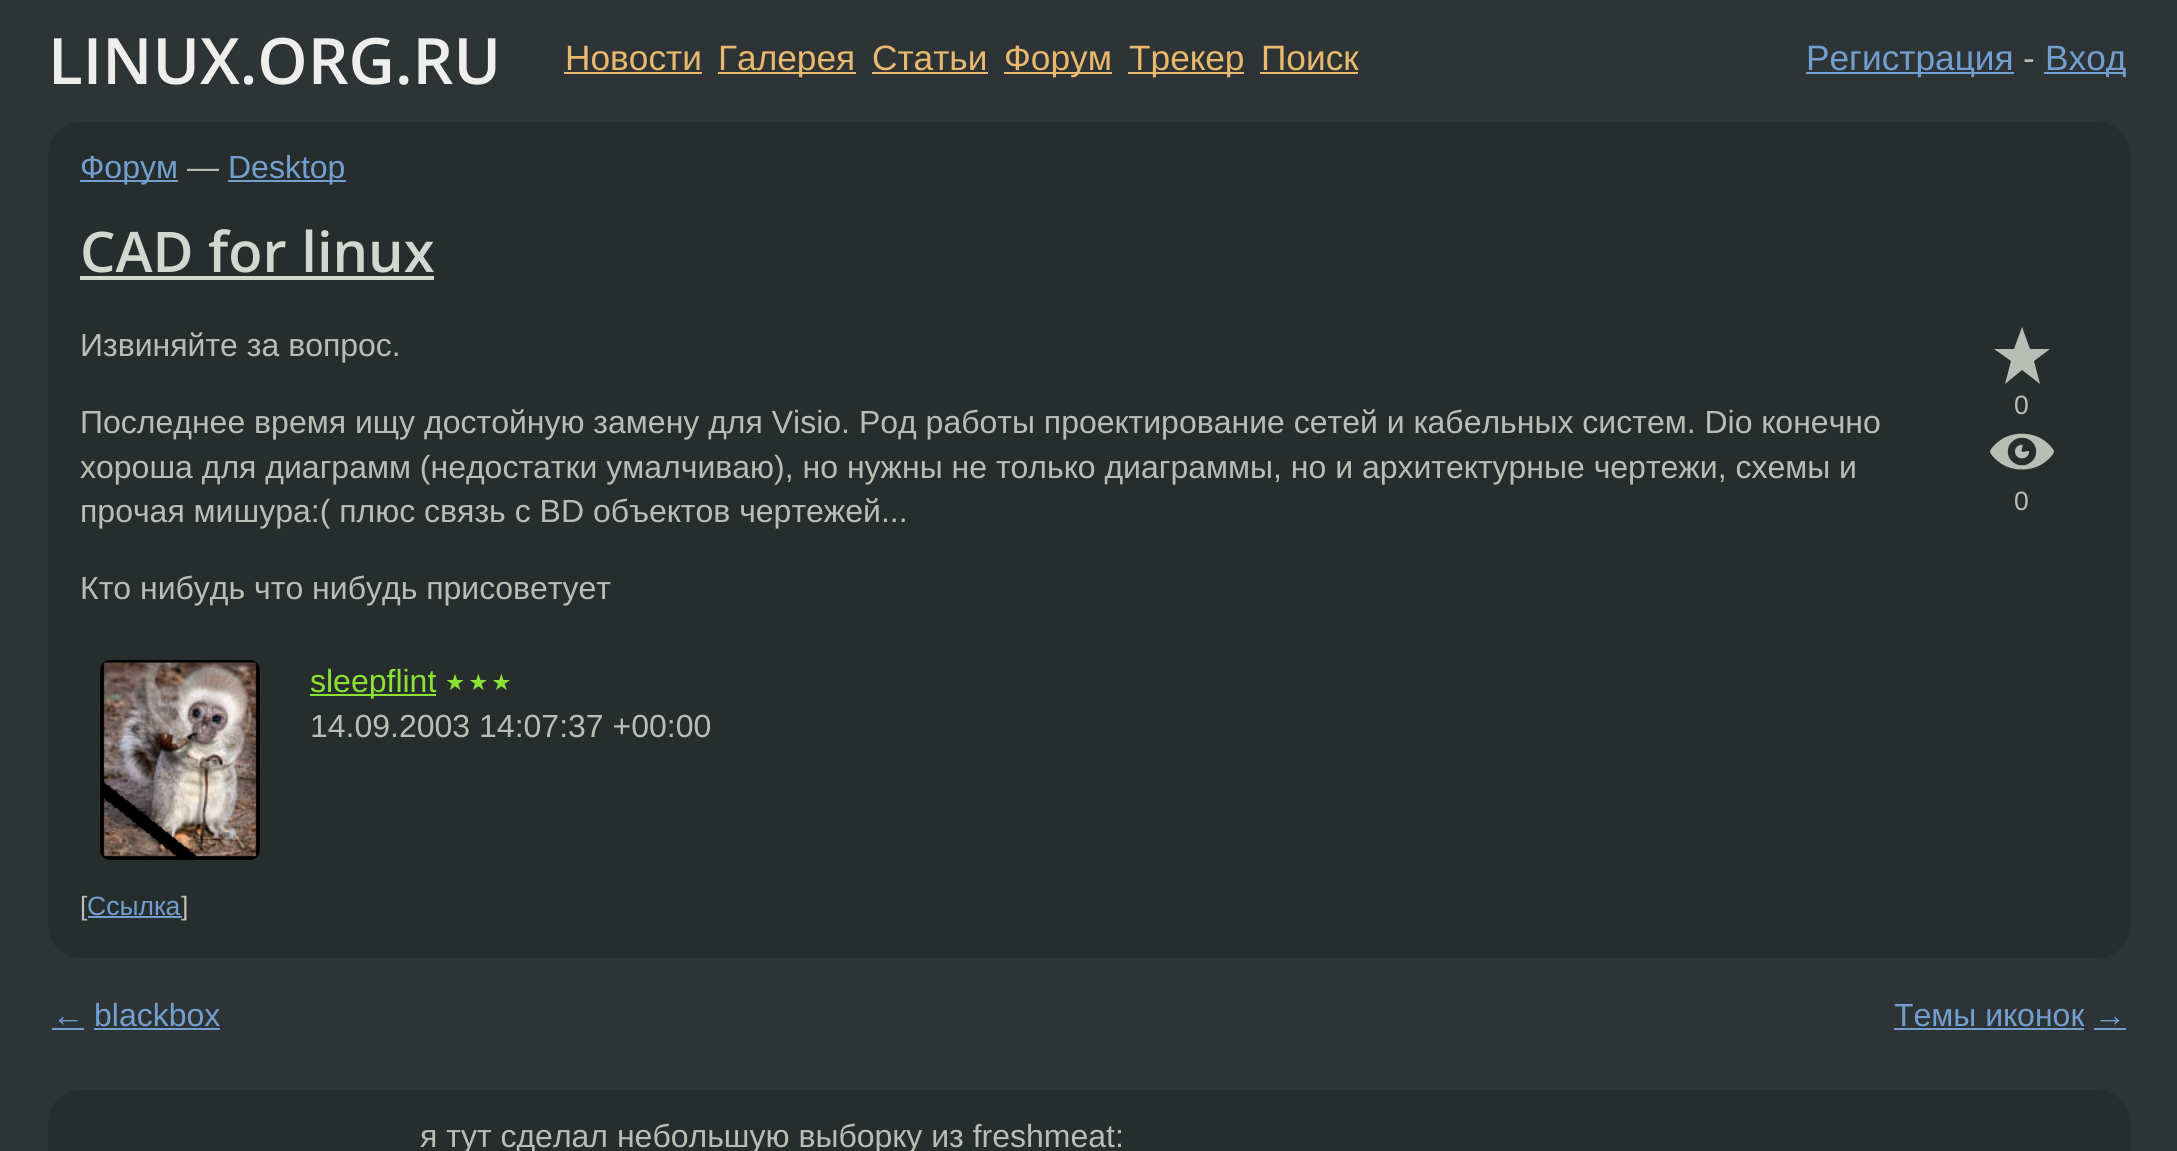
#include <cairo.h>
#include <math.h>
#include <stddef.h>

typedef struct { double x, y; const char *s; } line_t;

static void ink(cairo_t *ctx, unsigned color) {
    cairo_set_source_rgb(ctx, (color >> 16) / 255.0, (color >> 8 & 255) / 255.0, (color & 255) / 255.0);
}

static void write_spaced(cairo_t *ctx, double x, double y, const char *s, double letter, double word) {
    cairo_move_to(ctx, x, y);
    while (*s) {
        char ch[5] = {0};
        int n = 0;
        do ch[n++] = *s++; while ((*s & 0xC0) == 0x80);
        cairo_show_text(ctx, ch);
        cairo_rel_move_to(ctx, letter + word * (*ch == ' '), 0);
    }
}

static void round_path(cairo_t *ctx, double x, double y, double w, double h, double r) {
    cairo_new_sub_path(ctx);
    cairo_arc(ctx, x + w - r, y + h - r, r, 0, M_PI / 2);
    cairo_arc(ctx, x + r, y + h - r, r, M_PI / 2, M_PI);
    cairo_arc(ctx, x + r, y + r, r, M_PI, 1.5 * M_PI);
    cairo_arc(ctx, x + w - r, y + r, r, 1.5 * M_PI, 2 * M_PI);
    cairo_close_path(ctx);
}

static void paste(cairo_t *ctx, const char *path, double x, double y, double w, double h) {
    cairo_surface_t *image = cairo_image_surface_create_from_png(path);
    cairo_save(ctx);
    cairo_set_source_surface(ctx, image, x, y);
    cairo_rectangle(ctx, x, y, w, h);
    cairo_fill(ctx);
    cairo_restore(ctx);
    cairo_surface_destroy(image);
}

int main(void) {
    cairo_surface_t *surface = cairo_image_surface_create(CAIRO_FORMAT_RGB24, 2177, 1151);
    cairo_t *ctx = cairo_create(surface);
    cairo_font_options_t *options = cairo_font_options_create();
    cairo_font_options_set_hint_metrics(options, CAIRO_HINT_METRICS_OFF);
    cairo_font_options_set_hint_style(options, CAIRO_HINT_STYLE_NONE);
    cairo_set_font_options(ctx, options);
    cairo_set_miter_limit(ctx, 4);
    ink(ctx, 0x2E3436);
    cairo_paint(ctx);
    cairo_select_font_face(ctx, "Open Sans SemiBold", CAIRO_FONT_SLANT_NORMAL, CAIRO_FONT_WEIGHT_NORMAL);
    cairo_set_font_size(ctx, 64);
    ink(ctx, 0xEEEEEC);
    cairo_move_to(ctx, 48, 84);
    cairo_show_text(ctx, "LINUX.ORG.RU");
    cairo_select_font_face(ctx, "Liberation Sans", CAIRO_FONT_SLANT_NORMAL, CAIRO_FONT_WEIGHT_NORMAL);
    cairo_set_font_size(ctx, 35.25);
    ink(ctx, 0xE9B96E);
    cairo_move_to(ctx, 565, 70);
    cairo_show_text(ctx, "Новости");
    cairo_rectangle(ctx, 564, 72, 138, 2);
    cairo_fill(ctx);
    cairo_rectangle(ctx, 718, 72, 138, 2);
    cairo_fill(ctx);
    cairo_move_to(ctx, 718, 70);
    cairo_show_text(ctx, "Галерея");
    cairo_move_to(ctx, 872, 70);
    cairo_show_text(ctx, "Статьи");
    cairo_rectangle(ctx, 872, 72, 116, 2);
    cairo_fill(ctx);
    cairo_rectangle(ctx, 1004, 72, 108, 2);
    cairo_fill(ctx);
    cairo_move_to(ctx, 1004, 70);
    cairo_show_text(ctx, "Форум");
    cairo_rectangle(ctx, 1128, 72, 116, 2);
    cairo_fill(ctx);
    cairo_move_to(ctx, 1129, 70);
    cairo_show_text(ctx, "Трекер");
    cairo_move_to(ctx, 1261, 70);
    cairo_show_text(ctx, "Поиск");
    cairo_rectangle(ctx, 1260, 72, 98, 2);
    cairo_fill(ctx);
    ink(ctx, 0x729FCF);
    cairo_rectangle(ctx, 1806, 72, 208, 2);
    cairo_fill(ctx);
    cairo_move_to(ctx, 1806, 70);
    cairo_show_text(ctx, "Регистрация");
    ink(ctx, 0xBABDB6);
    cairo_move_to(ctx, 2023, 70);
    cairo_show_text(ctx, "-");
    ink(ctx, 0x729FCF);
    cairo_rectangle(ctx, 2044, 72, 82, 2);
    cairo_fill(ctx);
    cairo_move_to(ctx, 2045, 70);
    cairo_show_text(ctx, "Вход");
    ink(ctx, 0x272C2D);
    round_path(ctx, 48, 122, 2082, 836, 32);
    cairo_fill(ctx);
    ink(ctx, 0x729FCF);
    cairo_rectangle(ctx, 80, 180, 98, 2);
    cairo_fill(ctx);
    cairo_set_font_size(ctx, 32);
    cairo_move_to(ctx, 80, 178);
    cairo_show_text(ctx, "Форум");
    ink(ctx, 0xBABDB6);
    cairo_move_to(ctx, 187, 178);
    cairo_show_text(ctx, "—");
    ink(ctx, 0x729FCF);
    cairo_rectangle(ctx, 228, 180, 118, 2);
    cairo_fill(ctx);
    cairo_move_to(ctx, 228, 178);
    cairo_show_text(ctx, "Desktop");
    cairo_select_font_face(ctx, "Open Sans SemiBold", CAIRO_FONT_SLANT_NORMAL, CAIRO_FONT_WEIGHT_NORMAL);
    cairo_set_font_size(ctx, 56);
    ink(ctx, 0xD3D7CF);
    cairo_move_to(ctx, 80, 272);
    cairo_show_text(ctx, "CAD for linux");
    cairo_rectangle(ctx, 80, 276, 354, 4);
    cairo_fill(ctx);
    cairo_select_font_face(ctx, "Liberation Sans", CAIRO_FONT_SLANT_NORMAL, CAIRO_FONT_WEIGHT_NORMAL);
    cairo_set_font_size(ctx, 32);
    ink(ctx, 0xBABDB6);
    {
        static const line_t items[] = {
            {80, 356, "Извиняйте за вопрос."},
            {80, 433, "Последнее время ищу достойную замену для Visio. Род работы проектирование сетей и кабельных систем. Dio конечно"},
            {80, 478, "хороша для диаграмм (недостатки умалчиваю), но нужны не только диаграммы, но и архитектурные чертежи, схемы и"},
            {80, 522, "прочая мишура:( плюс связь с BD объектов чертежей..."},
            {80, 599, "Кто нибудь что нибудь присоветует"},
        };
        for (size_t i = 0; i < sizeof items / sizeof *items; i++) {
            cairo_move_to(ctx, items[i].x, items[i].y);
            cairo_show_text(ctx, items[i].s);
        }
    }
    cairo_new_path(ctx);
    cairo_move_to(ctx, 2022, 327);
    cairo_line_to(ctx, 2030, 349);
    cairo_line_to(ctx, 2050, 349);
    cairo_line_to(ctx, 2034, 361);
    cairo_line_to(ctx, 2040, 384);
    cairo_line_to(ctx, 2022, 370);
    cairo_line_to(ctx, 2005, 384);
    cairo_line_to(ctx, 2011, 361);
    cairo_line_to(ctx, 1994, 349);
    cairo_line_to(ctx, 2014, 349);
    cairo_close_path(ctx);
    cairo_fill(ctx);
    cairo_set_font_size(ctx, 26.5);
    cairo_move_to(ctx, 2014, 414);
    cairo_show_text(ctx, "0");
    paste(ctx, "media/1.png", 1990, 433, 64, 37);
    cairo_move_to(ctx, 2014, 510);
    cairo_show_text(ctx, "0");
    paste(ctx, "media/2.png", 100, 660, 160, 200);
    ink(ctx, 0x8AE234);
    cairo_rectangle(ctx, 310, 694, 126, 2);
    cairo_fill(ctx);
    cairo_set_font_size(ctx, 32);
    cairo_move_to(ctx, 310, 692);
    cairo_show_text(ctx, "sleepflint");
    cairo_select_font_face(ctx, "DejaVu Sans", CAIRO_FONT_SLANT_NORMAL, CAIRO_FONT_WEIGHT_NORMAL);
    cairo_set_font_size(ctx, 22.5);
    write_spaced(ctx, 445, 690, "★★★", 3, 0);
    cairo_select_font_face(ctx, "Liberation Sans", CAIRO_FONT_SLANT_NORMAL, CAIRO_FONT_WEIGHT_NORMAL);
    cairo_set_font_size(ctx, 32);
    ink(ctx, 0xBABDB6);
    cairo_move_to(ctx, 310, 737);
    cairo_show_text(ctx, "14.09.2003 14:07:37 +00:00");
    cairo_set_font_size(ctx, 26.5);
    cairo_move_to(ctx, 80, 915);
    cairo_show_text(ctx, "[");
    ink(ctx, 0x729FCF);
    cairo_rectangle(ctx, 88, 916, 94, 2);
    cairo_fill(ctx);
    cairo_move_to(ctx, 87, 915);
    cairo_show_text(ctx, "Ссылка");
    ink(ctx, 0xBABDB6);
    cairo_move_to(ctx, 181, 915);
    cairo_show_text(ctx, "]");
    cairo_set_font_size(ctx, 32);
    ink(ctx, 0x729FCF);
    cairo_move_to(ctx, 52, 1026);
    cairo_show_text(ctx, "←");
    cairo_rectangle(ctx, 52, 1028, 32, 2);
    cairo_fill(ctx);
    cairo_move_to(ctx, 94, 1026);
    cairo_show_text(ctx, "blackbox");
    cairo_rectangle(ctx, 94, 1028, 126, 2);
    cairo_fill(ctx);
    cairo_move_to(ctx, 1894, 1026);
    cairo_show_text(ctx, "Темы иконок");
    cairo_rectangle(ctx, 1894, 1028, 190, 2);
    cairo_fill(ctx);
    cairo_move_to(ctx, 2094, 1026);
    cairo_show_text(ctx, "→");
    cairo_rectangle(ctx, 2094, 1028, 32, 2);
    cairo_fill(ctx);
    ink(ctx, 0x272C2D);
    round_path(ctx, 48, 1090, 2082, 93, 32);
    cairo_fill(ctx);
    ink(ctx, 0xBABDB6);
    cairo_move_to(ctx, 420, 1147);
    cairo_show_text(ctx, "я тут сделал небольшую выборку из freshmeat:");
    cairo_surface_write_to_png(surface, "image.png");
    cairo_font_options_destroy(options);
    cairo_destroy(ctx);
    cairo_surface_destroy(surface);
    return 0;
}
